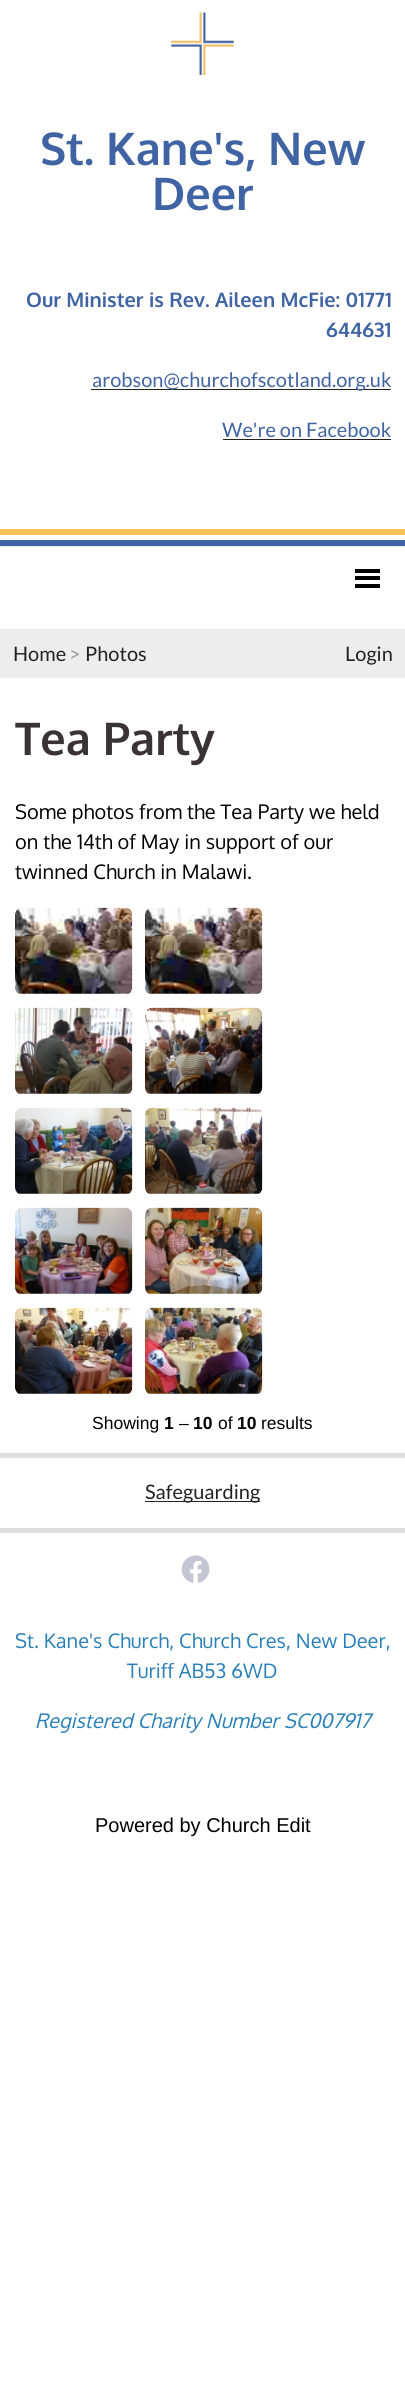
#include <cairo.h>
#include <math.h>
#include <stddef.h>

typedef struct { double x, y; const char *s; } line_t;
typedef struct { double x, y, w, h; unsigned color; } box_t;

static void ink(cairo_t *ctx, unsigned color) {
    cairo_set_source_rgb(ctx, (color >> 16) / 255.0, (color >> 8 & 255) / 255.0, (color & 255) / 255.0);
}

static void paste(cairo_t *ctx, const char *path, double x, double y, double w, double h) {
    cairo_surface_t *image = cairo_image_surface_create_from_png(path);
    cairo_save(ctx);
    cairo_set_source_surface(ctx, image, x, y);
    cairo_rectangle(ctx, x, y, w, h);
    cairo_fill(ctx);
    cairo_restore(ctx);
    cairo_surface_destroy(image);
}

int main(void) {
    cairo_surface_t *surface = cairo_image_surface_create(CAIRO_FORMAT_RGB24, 405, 2401);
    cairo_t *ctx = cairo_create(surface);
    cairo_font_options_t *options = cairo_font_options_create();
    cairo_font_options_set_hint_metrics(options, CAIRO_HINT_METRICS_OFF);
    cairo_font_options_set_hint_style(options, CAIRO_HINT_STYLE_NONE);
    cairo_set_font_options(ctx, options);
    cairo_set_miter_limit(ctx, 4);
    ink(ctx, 0xFFFFFF);
    cairo_paint(ctx);
    paste(ctx, "media/1.png", 171, 12, 63, 63);
    cairo_select_font_face(ctx, "Oxygen", CAIRO_FONT_SLANT_NORMAL, CAIRO_FONT_WEIGHT_BOLD);
    cairo_set_font_size(ctx, 45);
    ink(ctx, 0x4063A3);
    cairo_move_to(ctx, 40, 165);
    cairo_show_text(ctx, "St. Kane's, New");
    cairo_move_to(ctx, 152, 210);
    cairo_show_text(ctx, "Deer");
    cairo_set_font_size(ctx, 20);
    cairo_move_to(ctx, 26, 307);
    cairo_show_text(ctx, "Our Minister is Rev. Aileen McFie: 01771");
    cairo_move_to(ctx, 326, 337);
    cairo_show_text(ctx, "644631");
    ink(ctx, 0x222222);
    cairo_rectangle(ctx, 91, 389, 300, 1);
    cairo_fill(ctx);
    cairo_select_font_face(ctx, "Lato", CAIRO_FONT_SLANT_NORMAL, CAIRO_FONT_WEIGHT_NORMAL);
    ink(ctx, 0x4063A3);
    cairo_move_to(ctx, 92, 387);
    cairo_show_text(ctx, "arobson@churchofscotland.org.uk");
    cairo_move_to(ctx, 222, 437);
    cairo_show_text(ctx, "We're on Facebook");
    ink(ctx, 0x222222);
    cairo_rectangle(ctx, 223, 439, 168, 1);
    cairo_fill(ctx);
    paste(ctx, "media/2.png", 0, 528, 405, 19);
    {
        static const box_t items[] = {
            {355, 569, 25, 4, 0x000000},
            {355, 576, 25, 4, 0x000000},
            {355, 584, 25, 4, 0x000000},
            {0, 629, 405, 49, 0xEDEDED},
        };
        for (size_t i = 0; i < sizeof items / sizeof *items; i++) {
            ink(ctx, items[i].color);
            cairo_rectangle(ctx, items[i].x, items[i].y, items[i].w, items[i].h);
            cairo_fill(ctx);
        }
    }
    ink(ctx, 0x222222);
    cairo_move_to(ctx, 13, 661);
    cairo_show_text(ctx, "Home");
    ink(ctx, 0x999999);
    cairo_move_to(ctx, 69, 661);
    cairo_show_text(ctx, ">");
    ink(ctx, 0x222222);
    cairo_move_to(ctx, 85, 661);
    cairo_show_text(ctx, "Photos");
    cairo_move_to(ctx, 345, 661);
    cairo_show_text(ctx, "Login");
    cairo_select_font_face(ctx, "Oxygen", CAIRO_FONT_SLANT_NORMAL, CAIRO_FONT_WEIGHT_BOLD);
    cairo_set_font_size(ctx, 45);
    ink(ctx, 0x3A3335);
    cairo_move_to(ctx, 15, 755);
    cairo_show_text(ctx, "Tea Party");
    cairo_select_font_face(ctx, "Oxygen", CAIRO_FONT_SLANT_NORMAL, CAIRO_FONT_WEIGHT_NORMAL);
    cairo_set_font_size(ctx, 20);
    ink(ctx, 0x000000);
    {
        static const line_t items[] = {
            {15, 819, "Some photos from the Tea Party we held"},
            {15, 849, "on the 14th of May in support of our"},
            {15, 879, "twinned Church in Malawi."},
        };
        for (size_t i = 0; i < sizeof items / sizeof *items; i++) {
            cairo_move_to(ctx, items[i].x, items[i].y);
            cairo_show_text(ctx, items[i].s);
        }
    }
    paste(ctx, "media/3.png", 15, 907, 118, 87);
    paste(ctx, "media/4.png", 145, 907, 118, 87);
    paste(ctx, "media/5.png", 15, 1007, 118, 87);
    paste(ctx, "media/6.png", 145, 1007, 118, 87);
    paste(ctx, "media/7.png", 15, 1107, 118, 87);
    paste(ctx, "media/8.png", 145, 1107, 118, 87);
    paste(ctx, "media/9.png", 15, 1207, 118, 87);
    paste(ctx, "media/10.png", 145, 1207, 118, 87);
    paste(ctx, "media/11.png", 15, 1307, 118, 87);
    paste(ctx, "media/12.png", 145, 1307, 118, 87);
    cairo_select_font_face(ctx, "Liberation Sans", CAIRO_FONT_SLANT_NORMAL, CAIRO_FONT_WEIGHT_NORMAL);
    cairo_set_font_size(ctx, 17.5);
    cairo_move_to(ctx, 92, 1429);
    cairo_show_text(ctx, "Showing");
    cairo_select_font_face(ctx, "Liberation Sans", CAIRO_FONT_SLANT_NORMAL, CAIRO_FONT_WEIGHT_BOLD);
    cairo_move_to(ctx, 164, 1429);
    cairo_show_text(ctx, "1");
    cairo_select_font_face(ctx, "Liberation Sans", CAIRO_FONT_SLANT_NORMAL, CAIRO_FONT_WEIGHT_NORMAL);
    cairo_move_to(ctx, 179, 1429);
    cairo_show_text(ctx, "–");
    cairo_select_font_face(ctx, "Liberation Sans", CAIRO_FONT_SLANT_NORMAL, CAIRO_FONT_WEIGHT_BOLD);
    cairo_move_to(ctx, 193, 1429);
    cairo_show_text(ctx, "10");
    cairo_select_font_face(ctx, "Liberation Sans", CAIRO_FONT_SLANT_NORMAL, CAIRO_FONT_WEIGHT_NORMAL);
    cairo_move_to(ctx, 218, 1429);
    cairo_show_text(ctx, "of");
    cairo_select_font_face(ctx, "Liberation Sans", CAIRO_FONT_SLANT_NORMAL, CAIRO_FONT_WEIGHT_BOLD);
    cairo_move_to(ctx, 237, 1429);
    cairo_show_text(ctx, "10");
    cairo_select_font_face(ctx, "Liberation Sans", CAIRO_FONT_SLANT_NORMAL, CAIRO_FONT_WEIGHT_NORMAL);
    cairo_move_to(ctx, 261, 1429);
    cairo_show_text(ctx, "results");
    ink(ctx, 0xDEDEDE);
    cairo_rectangle(ctx, 0, 1453, 405, 5);
    cairo_fill(ctx);
    ink(ctx, 0x222222);
    cairo_rectangle(ctx, 145, 1501, 115, 1);
    cairo_fill(ctx);
    cairo_select_font_face(ctx, "Lato", CAIRO_FONT_SLANT_NORMAL, CAIRO_FONT_WEIGHT_NORMAL);
    cairo_set_font_size(ctx, 20);
    cairo_move_to(ctx, 145, 1499);
    cairo_show_text(ctx, "Safeguarding");
    ink(ctx, 0xDEDEDE);
    cairo_rectangle(ctx, 0, 1528, 405, 5);
    cairo_fill(ctx);
    paste(ctx, "media/13.png", 181, 1555, 29, 28);
    cairo_select_font_face(ctx, "Oxygen", CAIRO_FONT_SLANT_NORMAL, CAIRO_FONT_WEIGHT_NORMAL);
    ink(ctx, 0x2980B9);
    cairo_move_to(ctx, 15, 1648);
    cairo_show_text(ctx, "St. Kane's Church, Church Cres, New Deer,");
    cairo_move_to(ctx, 127, 1678);
    cairo_show_text(ctx, "Turiff AB53 6WD");
    cairo_select_font_face(ctx, "Oxygen", CAIRO_FONT_SLANT_ITALIC, CAIRO_FONT_WEIGHT_NORMAL);
    cairo_move_to(ctx, 35, 1728);
    cairo_show_text(ctx, "Registered Charity Number SC007917");
    cairo_select_font_face(ctx, "Liberation Sans", CAIRO_FONT_SLANT_NORMAL, CAIRO_FONT_WEIGHT_NORMAL);
    ink(ctx, 0x000000);
    cairo_move_to(ctx, 95, 1832);
    cairo_show_text(ctx, "Powered by Church Edit");
    cairo_surface_write_to_png(surface, "image.png");
    cairo_font_options_destroy(options);
    cairo_destroy(ctx);
    cairo_surface_destroy(surface);
    return 0;
}
